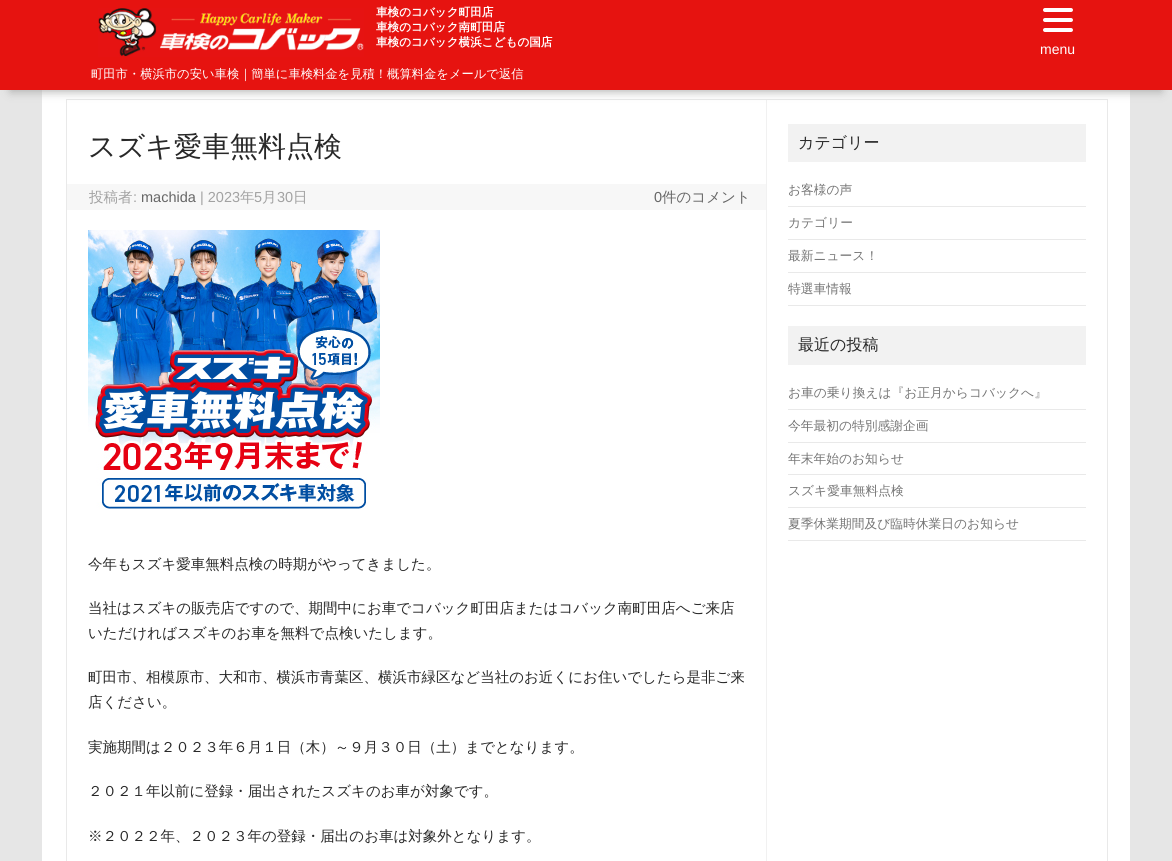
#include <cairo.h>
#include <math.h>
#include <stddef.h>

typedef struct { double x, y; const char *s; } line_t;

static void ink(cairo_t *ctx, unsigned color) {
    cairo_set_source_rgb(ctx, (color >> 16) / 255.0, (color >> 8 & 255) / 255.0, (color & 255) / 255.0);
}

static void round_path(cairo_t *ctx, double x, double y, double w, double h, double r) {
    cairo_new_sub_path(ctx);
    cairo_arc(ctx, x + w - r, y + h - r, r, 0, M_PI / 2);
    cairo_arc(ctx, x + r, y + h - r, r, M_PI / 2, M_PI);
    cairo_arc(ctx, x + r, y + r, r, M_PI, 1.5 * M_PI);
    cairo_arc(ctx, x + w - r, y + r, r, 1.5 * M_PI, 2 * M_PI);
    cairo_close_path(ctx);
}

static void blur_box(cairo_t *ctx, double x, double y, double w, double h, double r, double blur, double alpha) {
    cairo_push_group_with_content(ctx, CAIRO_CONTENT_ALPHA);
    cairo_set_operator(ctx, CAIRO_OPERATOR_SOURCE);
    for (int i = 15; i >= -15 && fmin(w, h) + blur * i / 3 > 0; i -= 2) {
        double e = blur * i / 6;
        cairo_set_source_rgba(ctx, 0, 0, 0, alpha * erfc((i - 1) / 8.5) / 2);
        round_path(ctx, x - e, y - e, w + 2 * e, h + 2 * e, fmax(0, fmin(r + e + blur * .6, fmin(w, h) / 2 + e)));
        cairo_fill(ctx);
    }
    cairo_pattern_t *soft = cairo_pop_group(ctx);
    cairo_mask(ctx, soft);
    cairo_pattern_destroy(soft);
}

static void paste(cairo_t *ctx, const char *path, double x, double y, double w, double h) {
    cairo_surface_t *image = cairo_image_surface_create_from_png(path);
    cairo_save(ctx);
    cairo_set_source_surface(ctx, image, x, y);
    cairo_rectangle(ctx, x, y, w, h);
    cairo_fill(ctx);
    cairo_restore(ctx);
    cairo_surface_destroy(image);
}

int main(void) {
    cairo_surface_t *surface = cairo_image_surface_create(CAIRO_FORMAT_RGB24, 1172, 861);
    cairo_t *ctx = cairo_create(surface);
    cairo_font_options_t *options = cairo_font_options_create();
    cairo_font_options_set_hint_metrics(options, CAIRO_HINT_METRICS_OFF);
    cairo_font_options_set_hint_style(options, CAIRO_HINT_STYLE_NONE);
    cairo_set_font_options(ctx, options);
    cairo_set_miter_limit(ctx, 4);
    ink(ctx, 0xE6E6E6);
    cairo_paint(ctx);
    ink(ctx, 0xFFFFFF);
    cairo_rectangle(ctx, 42, 90, 1088, 771);
    cairo_fill(ctx);
    cairo_rectangle(ctx, 66.5, 99.5, 1041, 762);
    ink(ctx, 0xE9E9E9);
    cairo_set_line_width(ctx, 1);
    cairo_stroke(ctx);
    ink(ctx, 0xF1F1F1);
    cairo_rectangle(ctx, 766, 100, 1, 761);
    cairo_fill(ctx);
    ink(ctx, 0xA8A8A7);
    blur_box(ctx, 11, 23, 1150, 68, 0, 5, 1);
    ink(ctx, 0xE61310);
    cairo_rectangle(ctx, 0, 0, 1172, 90);
    cairo_fill(ctx);
    paste(ctx, "media/1.png", 98, 8, 266, 49);
    cairo_select_font_face(ctx, "WenQuanYi Zen Hei", CAIRO_FONT_SLANT_NORMAL, CAIRO_FONT_WEIGHT_BOLD);
    cairo_set_font_size(ctx, 11.6);
    ink(ctx, 0xFFFFFF);
    {
        static const line_t items[] = {
            {376, 16, "車検のコバック町田店"},
            {376, 31, "車検のコバック南町田店"},
            {376, 46, "車検のコバック横浜こどもの国店"},
        };
        for (size_t i = 0; i < sizeof items / sizeof *items; i++) {
            cairo_move_to(ctx, items[i].x, items[i].y);
            cairo_show_text(ctx, items[i].s);
        }
    }
    cairo_select_font_face(ctx, "WenQuanYi Zen Hei Medium", CAIRO_FONT_SLANT_NORMAL, CAIRO_FONT_WEIGHT_NORMAL);
    cairo_set_font_size(ctx, 12.3);
    cairo_move_to(ctx, 91, 78);
    cairo_show_text(ctx, "町田市・横浜市の安い車検｜簡単に車検料金を見積！概算料金をメールで返信");
    round_path(ctx, 1043, 18, 30, 4, 2);
    cairo_fill(ctx);
    round_path(ctx, 1043, 8, 30, 4, 2);
    cairo_fill(ctx);
    round_path(ctx, 1043, 28, 30, 4, 2);
    cairo_fill(ctx);
    cairo_select_font_face(ctx, "Liberation Sans", CAIRO_FONT_SLANT_NORMAL, CAIRO_FONT_WEIGHT_NORMAL);
    cairo_set_font_size(ctx, 14);
    cairo_move_to(ctx, 1040, 54);
    cairo_show_text(ctx, "menu");
    cairo_select_font_face(ctx, "WenQuanYi Zen Hei Medium", CAIRO_FONT_SLANT_NORMAL, CAIRO_FONT_WEIGHT_NORMAL);
    cairo_set_font_size(ctx, 28);
    ink(ctx, 0x282828);
    cairo_move_to(ctx, 88, 156);
    cairo_show_text(ctx, "スズキ愛車無料点検");
    ink(ctx, 0xF7F7F7);
    cairo_rectangle(ctx, 67, 184, 699, 26);
    cairo_fill(ctx);
    cairo_set_font_size(ctx, 14.5);
    ink(ctx, 0xA2A2A2);
    cairo_move_to(ctx, 89, 202);
    cairo_show_text(ctx, "投稿者");
    cairo_select_font_face(ctx, "Liberation Sans", CAIRO_FONT_SLANT_NORMAL, CAIRO_FONT_WEIGHT_NORMAL);
    cairo_move_to(ctx, 133, 202);
    cairo_show_text(ctx, ":");
    ink(ctx, 0x666666);
    cairo_move_to(ctx, 141, 202);
    cairo_show_text(ctx, "machida");
    ink(ctx, 0xA2A2A2);
    cairo_move_to(ctx, 200, 202);
    cairo_show_text(ctx, "| 2023");
    cairo_select_font_face(ctx, "WenQuanYi Zen Hei Medium", CAIRO_FONT_SLANT_NORMAL, CAIRO_FONT_WEIGHT_NORMAL);
    cairo_move_to(ctx, 240, 202);
    cairo_show_text(ctx, "年");
    cairo_select_font_face(ctx, "Liberation Sans", CAIRO_FONT_SLANT_NORMAL, CAIRO_FONT_WEIGHT_NORMAL);
    cairo_move_to(ctx, 254, 202);
    cairo_show_text(ctx, "5");
    cairo_select_font_face(ctx, "WenQuanYi Zen Hei Medium", CAIRO_FONT_SLANT_NORMAL, CAIRO_FONT_WEIGHT_NORMAL);
    cairo_move_to(ctx, 262, 202);
    cairo_show_text(ctx, "月");
    cairo_select_font_face(ctx, "Liberation Sans", CAIRO_FONT_SLANT_NORMAL, CAIRO_FONT_WEIGHT_NORMAL);
    cairo_move_to(ctx, 277, 202);
    cairo_show_text(ctx, "30");
    cairo_select_font_face(ctx, "WenQuanYi Zen Hei Medium", CAIRO_FONT_SLANT_NORMAL, CAIRO_FONT_WEIGHT_NORMAL);
    cairo_move_to(ctx, 293, 202);
    cairo_show_text(ctx, "日");
    cairo_select_font_face(ctx, "Liberation Sans", CAIRO_FONT_SLANT_NORMAL, CAIRO_FONT_WEIGHT_NORMAL);
    ink(ctx, 0x666666);
    cairo_move_to(ctx, 654, 202);
    cairo_show_text(ctx, "0");
    cairo_select_font_face(ctx, "WenQuanYi Zen Hei Medium", CAIRO_FONT_SLANT_NORMAL, CAIRO_FONT_WEIGHT_NORMAL);
    cairo_move_to(ctx, 662, 202);
    cairo_show_text(ctx, "件のコメント");
    paste(ctx, "media/2.png", 88, 230, 292, 279);
    ink(ctx, 0x282828);
    {
        static const line_t items[] = {
            {88, 569, "今年もスズキ愛車無料点検の時期がやってきました。"},
            {88, 613, "当社はスズキの販売店ですので、期間中にお車でコバック町田店またはコバック南町田店へご来店"},
            {88, 638, "いただければスズキのお車を無料で点検いたします。"},
            {88, 682, "町田市、相模原市、大和市、横浜市青葉区、横浜市緑区など当社のお近くにお住いでしたら是非ご来"},
            {88, 707, "店ください。"},
            {88, 752, "実施期間は２０２３年６月１日（木）～９月３０日（土）までとなります。"},
            {88, 796, "２０２１年以前に登録・届出されたスズキのお車が対象です。"},
            {88, 841, "※２０２２年、２０２３年の登録・届出のお車は対象外となります。"},
        };
        for (size_t i = 0; i < sizeof items / sizeof *items; i++) {
            cairo_move_to(ctx, items[i].x, items[i].y);
            cairo_show_text(ctx, items[i].s);
        }
    }
    ink(ctx, 0xF2F2F2);
    cairo_rectangle(ctx, 788, 124, 298, 38);
    cairo_fill(ctx);
    cairo_set_font_size(ctx, 16);
    ink(ctx, 0x282828);
    cairo_move_to(ctx, 798, 148);
    cairo_show_text(ctx, "カテゴリー");
    ink(ctx, 0xE9E9E9);
    cairo_rectangle(ctx, 788, 206, 298, 1);
    cairo_fill(ctx);
    cairo_set_font_size(ctx, 12.75);
    ink(ctx, 0x757575);
    cairo_move_to(ctx, 788, 194);
    cairo_show_text(ctx, "お客様の声");
    ink(ctx, 0xE9E9E9);
    cairo_rectangle(ctx, 788, 239, 298, 1);
    cairo_fill(ctx);
    ink(ctx, 0x757575);
    cairo_move_to(ctx, 788, 227);
    cairo_show_text(ctx, "カテゴリー");
    ink(ctx, 0xE9E9E9);
    cairo_rectangle(ctx, 788, 272, 298, 1);
    cairo_fill(ctx);
    ink(ctx, 0x757575);
    cairo_move_to(ctx, 788, 260);
    cairo_show_text(ctx, "最新ニュース！");
    ink(ctx, 0xE9E9E9);
    cairo_rectangle(ctx, 788, 305, 298, 1);
    cairo_fill(ctx);
    ink(ctx, 0x757575);
    cairo_move_to(ctx, 788, 293);
    cairo_show_text(ctx, "特選車情報");
    ink(ctx, 0xF2F2F2);
    cairo_rectangle(ctx, 788, 326, 298, 39);
    cairo_fill(ctx);
    cairo_set_font_size(ctx, 16);
    ink(ctx, 0x282828);
    cairo_move_to(ctx, 798, 350);
    cairo_show_text(ctx, "最近の投稿");
    ink(ctx, 0xE9E9E9);
    cairo_rectangle(ctx, 788, 409, 298, 1);
    cairo_fill(ctx);
    cairo_set_font_size(ctx, 12.75);
    ink(ctx, 0x757575);
    cairo_move_to(ctx, 788, 397);
    cairo_show_text(ctx, "お車の乗り換えは『お正月からコバックへ』");
    ink(ctx, 0xE9E9E9);
    cairo_rectangle(ctx, 788, 442, 298, 1);
    cairo_fill(ctx);
    ink(ctx, 0x757575);
    cairo_move_to(ctx, 788, 430);
    cairo_show_text(ctx, "今年最初の特別感謝企画");
    ink(ctx, 0xE9E9E9);
    cairo_rectangle(ctx, 788, 474, 298, 1);
    cairo_fill(ctx);
    ink(ctx, 0x757575);
    cairo_move_to(ctx, 788, 463);
    cairo_show_text(ctx, "年末年始のお知らせ");
    ink(ctx, 0xE9E9E9);
    cairo_rectangle(ctx, 788, 507, 298, 1);
    cairo_fill(ctx);
    ink(ctx, 0x757575);
    cairo_move_to(ctx, 788, 495);
    cairo_show_text(ctx, "スズキ愛車無料点検");
    ink(ctx, 0xE9E9E9);
    cairo_rectangle(ctx, 788, 540, 298, 1);
    cairo_fill(ctx);
    ink(ctx, 0x757575);
    cairo_move_to(ctx, 788, 528);
    cairo_show_text(ctx, "夏季休業期間及び臨時休業日のお知らせ");
    cairo_surface_write_to_png(surface, "image.png");
    cairo_font_options_destroy(options);
    cairo_destroy(ctx);
    cairo_surface_destroy(surface);
    return 0;
}
